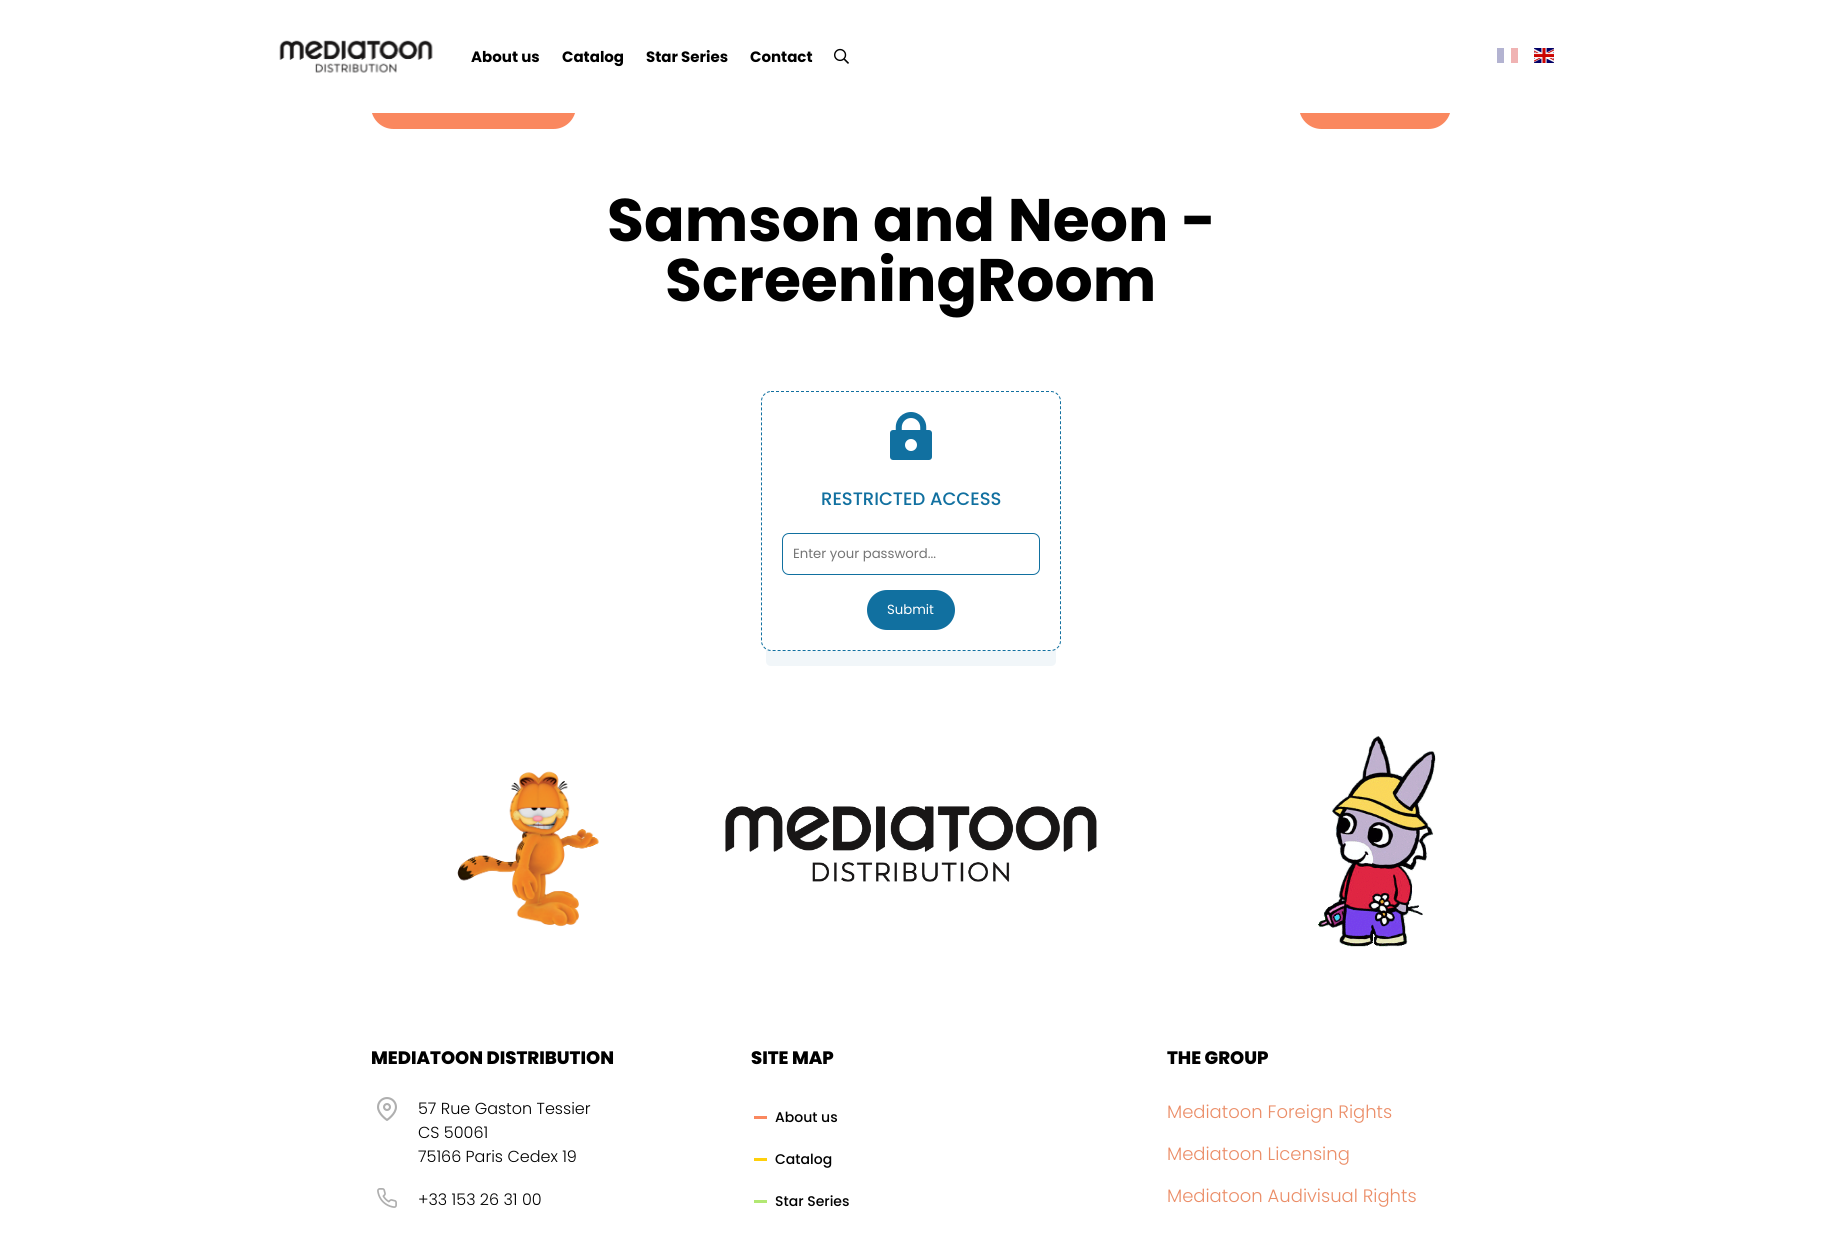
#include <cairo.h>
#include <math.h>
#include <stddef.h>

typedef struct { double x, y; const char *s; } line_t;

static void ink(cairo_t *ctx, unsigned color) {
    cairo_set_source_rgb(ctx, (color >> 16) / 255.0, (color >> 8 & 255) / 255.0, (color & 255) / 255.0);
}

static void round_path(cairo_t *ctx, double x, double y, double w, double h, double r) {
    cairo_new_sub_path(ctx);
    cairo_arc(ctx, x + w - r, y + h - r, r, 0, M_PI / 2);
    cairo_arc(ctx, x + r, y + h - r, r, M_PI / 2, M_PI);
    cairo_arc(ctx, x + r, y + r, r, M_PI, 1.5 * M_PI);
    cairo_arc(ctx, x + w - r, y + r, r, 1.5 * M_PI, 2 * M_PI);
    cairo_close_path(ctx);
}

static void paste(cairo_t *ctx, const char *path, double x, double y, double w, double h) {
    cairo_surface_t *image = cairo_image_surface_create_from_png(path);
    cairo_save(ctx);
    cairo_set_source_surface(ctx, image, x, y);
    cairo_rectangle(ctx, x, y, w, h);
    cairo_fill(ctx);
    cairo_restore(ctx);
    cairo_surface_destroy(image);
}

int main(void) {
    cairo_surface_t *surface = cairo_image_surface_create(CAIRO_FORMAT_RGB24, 1822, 1235);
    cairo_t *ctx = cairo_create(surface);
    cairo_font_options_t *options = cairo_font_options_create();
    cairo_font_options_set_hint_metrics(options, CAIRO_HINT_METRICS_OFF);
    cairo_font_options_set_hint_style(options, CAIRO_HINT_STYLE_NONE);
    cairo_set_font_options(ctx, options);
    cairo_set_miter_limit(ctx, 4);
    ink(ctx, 0xFFFFFF);
    cairo_paint(ctx);
    ink(ctx, 0xFA885F);
    round_path(ctx, 372, 85, 203, 43, 21.5);
    cairo_fill_preserve(ctx);
    cairo_stroke(ctx);
    round_path(ctx, 1300, 85, 150, 43, 21.5);
    cairo_fill_preserve(ctx);
    cairo_stroke(ctx);
    ink(ctx, 0xFFFFFF);
    cairo_rectangle(ctx, 371, 84, 1080, 29);
    cairo_fill(ctx);
    paste(ctx, "media/1.png", 279, 40, 154, 33);
    cairo_select_font_face(ctx, "Poppins", CAIRO_FONT_SLANT_NORMAL, CAIRO_FONT_WEIGHT_BOLD);
    cairo_set_font_size(ctx, 15);
    ink(ctx, 0x000000);
    {
        static const line_t items[] = {
            {471, 62, "About us"},
            {562, 62, "Catalog"},
            {646, 62, "Star Series"},
            {750, 62, "Contact"},
        };
        for (size_t i = 0; i < sizeof items / sizeof *items; i++) {
            cairo_move_to(ctx, items[i].x, items[i].y);
            cairo_show_text(ctx, items[i].s);
        }
    }
    paste(ctx, "media/2.png", 834, 48, 15, 16);
    ink(ctx, 0xB3B3D1);
    cairo_rectangle(ctx, 1497, 48, 7, 15);
    cairo_fill(ctx);
    ink(ctx, 0xF0B3B3);
    cairo_rectangle(ctx, 1511, 48, 7, 15);
    cairo_fill(ctx);
    paste(ctx, "media/3.png", 1534, 48, 20, 15);
    cairo_set_font_size(ctx, 60);
    ink(ctx, 0x000000);
    cairo_move_to(ctx, 607, 241);
    cairo_show_text(ctx, "Samson and Neon -");
    cairo_move_to(ctx, 665, 301);
    cairo_show_text(ctx, "ScreeningRoom");
    ink(ctx, 0xF1F6F9);
    cairo_new_path(ctx);
    cairo_move_to(ctx, 766, 650);
    cairo_line_to(ctx, 766, 661);
    cairo_curve_to(ctx, 766, 664, 768, 666, 771, 666);
    cairo_line_to(ctx, 1051, 666);
    cairo_curve_to(ctx, 1054, 666, 1056, 664, 1056, 661);
    cairo_line_to(ctx, 1056, 650);
    cairo_line_to(ctx, 1052, 651);
    cairo_line_to(ctx, 911, 651);
    cairo_line_to(ctx, 771, 651);
    cairo_close_path(ctx);
    cairo_fill(ctx);
    cairo_new_path(ctx);
    cairo_move_to(ctx, 771, 391.5);
    cairo_line_to(ctx, 1051, 391.5);
    cairo_curve_to(ctx, 1056, 391.5, 1060.5, 396, 1060.5, 401);
    cairo_line_to(ctx, 1060.5, 641);
    cairo_curve_to(ctx, 1060.5, 646, 1056, 650.5, 1051, 650.5);
    cairo_line_to(ctx, 771, 650.5);
    cairo_curve_to(ctx, 766, 650.5, 761.5, 646, 761.5, 641);
    cairo_line_to(ctx, 761.5, 401);
    cairo_curve_to(ctx, 761.5, 396, 766, 391.5, 771, 391.5);
    cairo_close_path(ctx);
    ink(ctx, 0x1170A0);
    cairo_set_line_width(ctx, 1);
    cairo_set_dash(ctx, (double[]){3, 2}, 2, 0);
    cairo_stroke(ctx);
    paste(ctx, "media/4.png", 890, 412, 42, 48);
    cairo_select_font_face(ctx, "Poppins Medium", CAIRO_FONT_SLANT_NORMAL, CAIRO_FONT_WEIGHT_NORMAL);
    cairo_set_font_size(ctx, 18);
    cairo_move_to(ctx, 821, 505);
    cairo_show_text(ctx, "RESTRICTED ACCESS");
    round_path(ctx, 782.5, 533.5, 257, 41, 6.5);
    cairo_set_dash(ctx, NULL, 0, 0);
    cairo_stroke(ctx);
    cairo_select_font_face(ctx, "Poppins", CAIRO_FONT_SLANT_NORMAL, CAIRO_FONT_WEIGHT_NORMAL);
    cairo_set_font_size(ctx, 13.25);
    ink(ctx, 0x757575);
    cairo_move_to(ctx, 793, 558);
    cairo_show_text(ctx, "Enter your password...");
    ink(ctx, 0x1170A0);
    round_path(ctx, 867, 590, 88, 40, 20);
    cairo_fill(ctx);
    ink(ctx, 0xFFFFFF);
    cairo_move_to(ctx, 887, 614);
    cairo_show_text(ctx, "Submit");
    paste(ctx, "media/5.png", 457, 771, 142, 156);
    paste(ctx, "media/6.png", 725, 806, 372, 76);
    paste(ctx, "media/7.png", 1318, 736, 118, 211);
    cairo_select_font_face(ctx, "Poppins ExtraBold", CAIRO_FONT_SLANT_NORMAL, CAIRO_FONT_WEIGHT_NORMAL);
    cairo_set_font_size(ctx, 18);
    ink(ctx, 0x000000);
    cairo_move_to(ctx, 371, 1064);
    cairo_show_text(ctx, "MEDIATOON DISTRIBUTION");
    paste(ctx, "media/8.png", 377, 1097, 20, 24);
    cairo_select_font_face(ctx, "Poppins Light", CAIRO_FONT_SLANT_NORMAL, CAIRO_FONT_WEIGHT_NORMAL);
    cairo_set_font_size(ctx, 16);
    {
        static const line_t items[] = {
            {418, 1114, "57 Rue Gaston Tessier"},
            {418, 1138, "CS 50061"},
            {418, 1162, "75166 Paris Cedex 19"},
        };
        for (size_t i = 0; i < sizeof items / sizeof *items; i++) {
            cairo_move_to(ctx, items[i].x, items[i].y);
            cairo_show_text(ctx, items[i].s);
        }
    }
    paste(ctx, "media/9.png", 377, 1188, 20, 20);
    cairo_move_to(ctx, 418, 1205);
    cairo_show_text(ctx, "+33 153 26 31 00");
    cairo_select_font_face(ctx, "Poppins ExtraBold", CAIRO_FONT_SLANT_NORMAL, CAIRO_FONT_WEIGHT_NORMAL);
    cairo_set_font_size(ctx, 18);
    cairo_move_to(ctx, 751, 1064);
    cairo_show_text(ctx, "SITE MAP");
    ink(ctx, 0xFA885F);
    cairo_rectangle(ctx, 754, 1116, 13, 3);
    cairo_fill(ctx);
    cairo_select_font_face(ctx, "Poppins Medium", CAIRO_FONT_SLANT_NORMAL, CAIRO_FONT_WEIGHT_NORMAL);
    cairo_set_font_size(ctx, 14);
    ink(ctx, 0x000000);
    cairo_move_to(ctx, 775, 1122);
    cairo_show_text(ctx, "About us");
    ink(ctx, 0xFFD00B);
    cairo_rectangle(ctx, 754, 1158, 13, 3);
    cairo_fill(ctx);
    ink(ctx, 0x000000);
    cairo_move_to(ctx, 775, 1164);
    cairo_show_text(ctx, "Catalog");
    ink(ctx, 0xB2E873);
    cairo_rectangle(ctx, 754, 1200, 13, 3);
    cairo_fill(ctx);
    ink(ctx, 0x000000);
    cairo_move_to(ctx, 775, 1206);
    cairo_show_text(ctx, "Star Series");
    cairo_select_font_face(ctx, "Poppins ExtraBold", CAIRO_FONT_SLANT_NORMAL, CAIRO_FONT_WEIGHT_NORMAL);
    cairo_set_font_size(ctx, 18);
    cairo_move_to(ctx, 1167, 1064);
    cairo_show_text(ctx, "THE GROUP");
    cairo_select_font_face(ctx, "Poppins Light", CAIRO_FONT_SLANT_NORMAL, CAIRO_FONT_WEIGHT_NORMAL);
    ink(ctx, 0xEB8D67);
    {
        static const line_t items[] = {
            {1167, 1118, "Mediatoon Foreign Rights"},
            {1167, 1160, "Mediatoon Licensing"},
            {1167, 1202, "Mediatoon Audivisual Rights"},
        };
        for (size_t i = 0; i < sizeof items / sizeof *items; i++) {
            cairo_move_to(ctx, items[i].x, items[i].y);
            cairo_show_text(ctx, items[i].s);
        }
    }
    cairo_surface_write_to_png(surface, "image.png");
    cairo_font_options_destroy(options);
    cairo_destroy(ctx);
    cairo_surface_destroy(surface);
    return 0;
}
